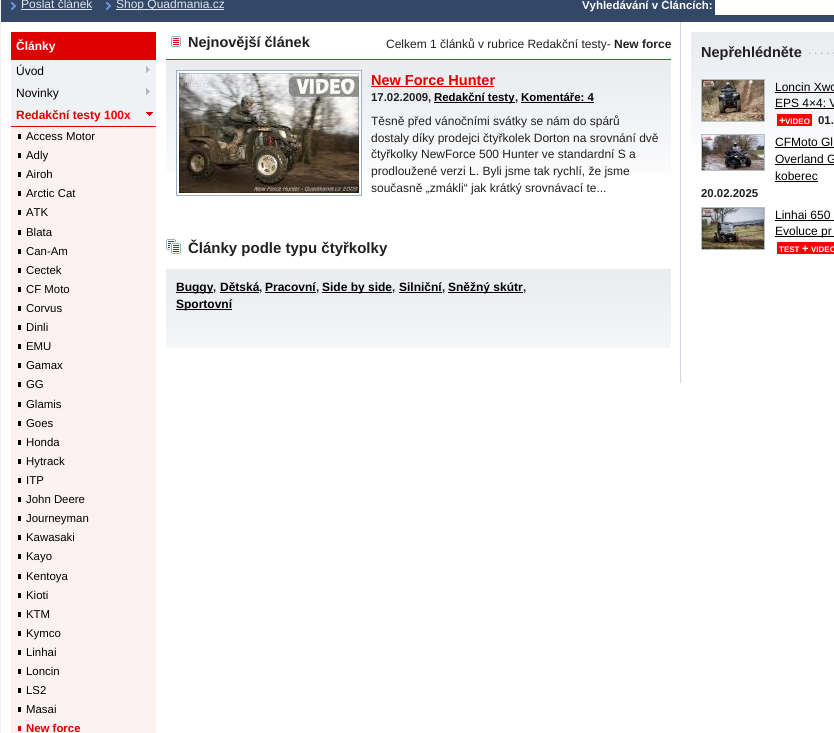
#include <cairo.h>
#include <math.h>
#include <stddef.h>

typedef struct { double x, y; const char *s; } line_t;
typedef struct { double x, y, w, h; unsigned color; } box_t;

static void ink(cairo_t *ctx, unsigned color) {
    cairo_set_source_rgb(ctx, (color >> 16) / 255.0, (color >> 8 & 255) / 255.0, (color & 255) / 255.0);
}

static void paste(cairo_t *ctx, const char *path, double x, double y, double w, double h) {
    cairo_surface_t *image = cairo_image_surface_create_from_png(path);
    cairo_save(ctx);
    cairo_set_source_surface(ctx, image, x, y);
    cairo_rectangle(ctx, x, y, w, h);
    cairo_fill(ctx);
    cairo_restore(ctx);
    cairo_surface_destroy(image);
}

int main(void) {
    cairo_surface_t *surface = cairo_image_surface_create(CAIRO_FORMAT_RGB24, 834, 733);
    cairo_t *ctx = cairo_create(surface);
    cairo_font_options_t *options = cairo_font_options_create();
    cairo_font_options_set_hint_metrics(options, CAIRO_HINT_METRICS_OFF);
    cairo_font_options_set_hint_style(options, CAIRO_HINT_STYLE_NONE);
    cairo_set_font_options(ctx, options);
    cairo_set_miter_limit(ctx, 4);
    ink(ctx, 0xFFFFFF);
    cairo_paint(ctx);
    ink(ctx, 0xF0F1F4);
    cairo_rectangle(ctx, 0, 0, 1, 733);
    cairo_fill(ctx);
    ink(ctx, 0x334766);
    cairo_rectangle(ctx, 1, 0, 833, 22);
    cairo_fill(ctx);
    paste(ctx, "media/1.png", 11, 2, 5, 8);
    cairo_select_font_face(ctx, "Liberation Sans", CAIRO_FONT_SLANT_NORMAL, CAIRO_FONT_WEIGHT_NORMAL);
    cairo_set_font_size(ctx, 12);
    ink(ctx, 0xE1E4EA);
    cairo_move_to(ctx, 21, 8);
    cairo_show_text(ctx, "Poslat článek");
    cairo_rectangle(ctx, 21, 9, 71, 1);
    cairo_fill(ctx);
    paste(ctx, "media/1.png", 106, 2, 5, 8);
    cairo_rectangle(ctx, 116, 9, 108, 1);
    cairo_fill(ctx);
    cairo_move_to(ctx, 116, 8);
    cairo_show_text(ctx, "Shop Quadmania.cz");
    cairo_select_font_face(ctx, "Liberation Sans", CAIRO_FONT_SLANT_NORMAL, CAIRO_FONT_WEIGHT_BOLD);
    cairo_set_font_size(ctx, 11.4);
    ink(ctx, 0xFFFFFF);
    cairo_move_to(ctx, 582, 9);
    cairo_show_text(ctx, "Vyhledávání v Článcích:");
    cairo_rectangle(ctx, 715, 0, 119, 15);
    cairo_fill(ctx);
    ink(ctx, 0xDF0000);
    cairo_rectangle(ctx, 11, 32, 145, 28);
    cairo_fill(ctx);
    cairo_set_font_size(ctx, 12);
    ink(ctx, 0xFFFFFF);
    cairo_move_to(ctx, 16, 50);
    cairo_show_text(ctx, "Články");
    ink(ctx, 0xF0F1F4);
    cairo_rectangle(ctx, 11, 60, 145, 66);
    cairo_fill(ctx);
    paste(ctx, "media/2.png", 146, 66, 4, 7);
    cairo_select_font_face(ctx, "Liberation Sans", CAIRO_FONT_SLANT_NORMAL, CAIRO_FONT_WEIGHT_NORMAL);
    ink(ctx, 0x000000);
    cairo_move_to(ctx, 16, 75);
    cairo_show_text(ctx, "Úvod");
    paste(ctx, "media/2.png", 146, 88, 4, 7);
    cairo_move_to(ctx, 16, 97);
    cairo_show_text(ctx, "Novinky");
    paste(ctx, "media/3.png", 146, 112, 7, 4);
    cairo_select_font_face(ctx, "Liberation Sans", CAIRO_FONT_SLANT_NORMAL, CAIRO_FONT_WEIGHT_BOLD);
    ink(ctx, 0xDF0000);
    cairo_move_to(ctx, 16, 119);
    cairo_show_text(ctx, "Redakční testy");
    ink(ctx, 0xFF0000);
    cairo_move_to(ctx, 104, 119);
    cairo_show_text(ctx, "100x");
    {
        static const box_t items[] = {
            {11, 126, 145, 1, 0xDF0000},
            {11, 127, 145, 606, 0xFDF2F2},
            {18, 134, 3, 5, 0x000000},
        };
        for (size_t i = 0; i < sizeof items / sizeof *items; i++) {
            ink(ctx, items[i].color);
            cairo_rectangle(ctx, items[i].x, items[i].y, items[i].w, items[i].h);
            cairo_fill(ctx);
        }
    }
    cairo_select_font_face(ctx, "Liberation Sans", CAIRO_FONT_SLANT_NORMAL, CAIRO_FONT_WEIGHT_NORMAL);
    cairo_set_font_size(ctx, 11.4);
    cairo_move_to(ctx, 26, 140);
    cairo_show_text(ctx, "Access Motor");
    cairo_rectangle(ctx, 18, 153, 3, 5);
    cairo_fill(ctx);
    cairo_move_to(ctx, 26, 159);
    cairo_show_text(ctx, "Adly");
    cairo_rectangle(ctx, 18, 172, 3, 5);
    cairo_fill(ctx);
    cairo_move_to(ctx, 26, 178);
    cairo_show_text(ctx, "Airoh");
    cairo_rectangle(ctx, 18, 191, 3, 5);
    cairo_fill(ctx);
    cairo_move_to(ctx, 26, 197);
    cairo_show_text(ctx, "Arctic Cat");
    cairo_rectangle(ctx, 18, 210, 3, 5);
    cairo_fill(ctx);
    cairo_move_to(ctx, 26, 216);
    cairo_show_text(ctx, "ATK");
    cairo_rectangle(ctx, 18, 230, 3, 5);
    cairo_fill(ctx);
    cairo_move_to(ctx, 26, 236);
    cairo_show_text(ctx, "Blata");
    cairo_rectangle(ctx, 18, 249, 3, 5);
    cairo_fill(ctx);
    cairo_move_to(ctx, 26, 255);
    cairo_show_text(ctx, "Can-Am");
    cairo_rectangle(ctx, 18, 268, 3, 5);
    cairo_fill(ctx);
    cairo_move_to(ctx, 26, 274);
    cairo_show_text(ctx, "Cectek");
    cairo_rectangle(ctx, 18, 287, 3, 5);
    cairo_fill(ctx);
    cairo_move_to(ctx, 26, 293);
    cairo_show_text(ctx, "CF Moto");
    cairo_rectangle(ctx, 18, 306, 3, 5);
    cairo_fill(ctx);
    cairo_move_to(ctx, 26, 312);
    cairo_show_text(ctx, "Corvus");
    cairo_rectangle(ctx, 18, 325, 3, 5);
    cairo_fill(ctx);
    cairo_move_to(ctx, 26, 331);
    cairo_show_text(ctx, "Dinli");
    cairo_rectangle(ctx, 18, 344, 3, 5);
    cairo_fill(ctx);
    cairo_move_to(ctx, 26, 350);
    cairo_show_text(ctx, "EMU");
    cairo_rectangle(ctx, 18, 363, 3, 5);
    cairo_fill(ctx);
    cairo_move_to(ctx, 26, 369);
    cairo_show_text(ctx, "Gamax");
    cairo_rectangle(ctx, 18, 382, 3, 5);
    cairo_fill(ctx);
    cairo_move_to(ctx, 26, 388);
    cairo_show_text(ctx, "GG");
    cairo_rectangle(ctx, 18, 402, 3, 5);
    cairo_fill(ctx);
    cairo_move_to(ctx, 26, 408);
    cairo_show_text(ctx, "Glamis");
    cairo_rectangle(ctx, 18, 421, 3, 5);
    cairo_fill(ctx);
    cairo_move_to(ctx, 26, 427);
    cairo_show_text(ctx, "Goes");
    cairo_rectangle(ctx, 18, 440, 3, 5);
    cairo_fill(ctx);
    cairo_move_to(ctx, 26, 446);
    cairo_show_text(ctx, "Honda");
    cairo_rectangle(ctx, 18, 459, 3, 5);
    cairo_fill(ctx);
    cairo_move_to(ctx, 26, 465);
    cairo_show_text(ctx, "Hytrack");
    cairo_rectangle(ctx, 18, 478, 3, 5);
    cairo_fill(ctx);
    cairo_move_to(ctx, 26, 484);
    cairo_show_text(ctx, "ITP");
    cairo_rectangle(ctx, 18, 497, 3, 5);
    cairo_fill(ctx);
    cairo_move_to(ctx, 26, 503);
    cairo_show_text(ctx, "John Deere");
    cairo_rectangle(ctx, 18, 516, 3, 5);
    cairo_fill(ctx);
    cairo_move_to(ctx, 26, 522);
    cairo_show_text(ctx, "Journeyman");
    cairo_rectangle(ctx, 18, 535, 3, 5);
    cairo_fill(ctx);
    cairo_move_to(ctx, 26, 541);
    cairo_show_text(ctx, "Kawasaki");
    cairo_rectangle(ctx, 18, 554, 3, 5);
    cairo_fill(ctx);
    cairo_move_to(ctx, 26, 560);
    cairo_show_text(ctx, "Kayo");
    cairo_rectangle(ctx, 18, 574, 3, 5);
    cairo_fill(ctx);
    cairo_move_to(ctx, 26, 580);
    cairo_show_text(ctx, "Kentoya");
    cairo_rectangle(ctx, 18, 593, 3, 5);
    cairo_fill(ctx);
    cairo_move_to(ctx, 26, 599);
    cairo_show_text(ctx, "Kioti");
    cairo_rectangle(ctx, 18, 612, 3, 5);
    cairo_fill(ctx);
    cairo_move_to(ctx, 26, 618);
    cairo_show_text(ctx, "KTM");
    cairo_rectangle(ctx, 18, 631, 3, 5);
    cairo_fill(ctx);
    cairo_move_to(ctx, 26, 637);
    cairo_show_text(ctx, "Kymco");
    cairo_rectangle(ctx, 18, 650, 3, 5);
    cairo_fill(ctx);
    cairo_move_to(ctx, 26, 656);
    cairo_show_text(ctx, "Linhai");
    cairo_rectangle(ctx, 18, 669, 3, 5);
    cairo_fill(ctx);
    cairo_move_to(ctx, 26, 675);
    cairo_show_text(ctx, "Loncin");
    cairo_rectangle(ctx, 18, 688, 3, 5);
    cairo_fill(ctx);
    cairo_move_to(ctx, 26, 694);
    cairo_show_text(ctx, "LS2");
    cairo_rectangle(ctx, 18, 707, 3, 5);
    cairo_fill(ctx);
    cairo_move_to(ctx, 26, 713);
    cairo_show_text(ctx, "Masai");
    ink(ctx, 0xDF0000);
    cairo_rectangle(ctx, 18, 726, 3, 5);
    cairo_fill(ctx);
    cairo_select_font_face(ctx, "Liberation Sans", CAIRO_FONT_SLANT_NORMAL, CAIRO_FONT_WEIGHT_BOLD);
    cairo_move_to(ctx, 26, 732);
    cairo_show_text(ctx, "New force");
    ink(ctx, 0xD2D6DF);
    cairo_rectangle(ctx, 680, 22, 1, 361);
    cairo_fill(ctx);
    paste(ctx, "media/4.png", 171, 36, 10, 11);
    cairo_set_font_size(ctx, 14.5);
    ink(ctx, 0x202020);
    cairo_move_to(ctx, 188, 47);
    cairo_show_text(ctx, "Nejnovější článek");
    cairo_select_font_face(ctx, "Liberation Sans", CAIRO_FONT_SLANT_NORMAL, CAIRO_FONT_WEIGHT_NORMAL);
    cairo_set_font_size(ctx, 12);
    cairo_move_to(ctx, 386, 48);
    cairo_show_text(ctx, "Celkem 1 článků v rubrice Redakční testy-");
    cairo_select_font_face(ctx, "Liberation Sans", CAIRO_FONT_SLANT_NORMAL, CAIRO_FONT_WEIGHT_BOLD);
    cairo_move_to(ctx, 614, 48);
    cairo_show_text(ctx, "New force");
    paste(ctx, "media/5.png", 166, 60, 505, 112);
    ink(ctx, 0xE11932);
    cairo_rectangle(ctx, 166, 59, 505, 1);
    cairo_fill(ctx);
    ink(ctx, 0xFFFFFF);
    cairo_rectangle(ctx, 177, 71, 184, 101);
    cairo_fill(ctx);
    cairo_rectangle(ctx, 176.5, 70.5, 185, 125);
    ink(ctx, 0x9BAFCD);
    cairo_set_line_width(ctx, 1);
    cairo_stroke(ctx);
    paste(ctx, "media/6.png", 179, 73, 180, 120);
    cairo_set_font_size(ctx, 14.5);
    ink(ctx, 0xDF0000);
    cairo_move_to(ctx, 371, 85);
    cairo_show_text(ctx, "New Force Hunter");
    cairo_rectangle(ctx, 371, 86, 123, 1);
    cairo_fill(ctx);
    cairo_set_font_size(ctx, 11.4);
    ink(ctx, 0x202020);
    cairo_move_to(ctx, 371, 101);
    cairo_show_text(ctx, "17.02.2009,");
    ink(ctx, 0x000000);
    cairo_rectangle(ctx, 434, 102, 81, 1);
    cairo_fill(ctx);
    cairo_move_to(ctx, 434, 101);
    cairo_show_text(ctx, "Redakční testy");
    ink(ctx, 0x202020);
    cairo_move_to(ctx, 515, 101);
    cairo_show_text(ctx, ",");
    ink(ctx, 0x000000);
    cairo_move_to(ctx, 521, 101);
    cairo_show_text(ctx, "Komentáře: 4");
    cairo_rectangle(ctx, 521, 102, 73, 1);
    cairo_fill(ctx);
    cairo_select_font_face(ctx, "Liberation Sans", CAIRO_FONT_SLANT_NORMAL, CAIRO_FONT_WEIGHT_NORMAL);
    cairo_set_font_size(ctx, 12);
    ink(ctx, 0x202020);
    {
        static const line_t items[] = {
            {371, 125, "Těsně před vánočními svátky se nám do spárů"},
            {371, 142, "dostaly díky prodejci čtyřkolek Dorton na srovnání dvě"},
            {371, 158, "čtyřkolky NewForce 500 Hunter ve standardní S a"},
            {371, 175, "prodloužené verzi L. Byli jsme tak rychlí, že jsme"},
            {371, 192, "současně „zmákli“ jak krátký srovnávací te..."},
        };
        for (size_t i = 0; i < sizeof items / sizeof *items; i++) {
            cairo_move_to(ctx, items[i].x, items[i].y);
            cairo_show_text(ctx, items[i].s);
        }
    }
    paste(ctx, "media/7.png", 166, 239, 15, 15);
    cairo_select_font_face(ctx, "Liberation Sans", CAIRO_FONT_SLANT_NORMAL, CAIRO_FONT_WEIGHT_BOLD);
    cairo_set_font_size(ctx, 15);
    cairo_move_to(ctx, 188, 253);
    cairo_show_text(ctx, "Články podle typu čtyřkolky");
    paste(ctx, "media/8.png", 166, 269, 505, 79);
    ink(ctx, 0x000000);
    cairo_rectangle(ctx, 176, 292, 37, 1);
    cairo_fill(ctx);
    cairo_set_font_size(ctx, 12);
    cairo_move_to(ctx, 176, 291);
    cairo_show_text(ctx, "Buggy");
    cairo_set_font_size(ctx, 11.4);
    ink(ctx, 0x202020);
    cairo_move_to(ctx, 213, 291);
    cairo_show_text(ctx, ",");
    cairo_set_font_size(ctx, 12);
    ink(ctx, 0x000000);
    cairo_move_to(ctx, 220, 291);
    cairo_show_text(ctx, "Dětská");
    cairo_set_font_size(ctx, 11.4);
    ink(ctx, 0x202020);
    cairo_move_to(ctx, 259, 291);
    cairo_show_text(ctx, ",");
    ink(ctx, 0x000000);
    cairo_rectangle(ctx, 220, 292, 39, 1);
    cairo_fill(ctx);
    cairo_set_font_size(ctx, 12);
    cairo_move_to(ctx, 265, 291);
    cairo_show_text(ctx, "Pracovní");
    cairo_set_font_size(ctx, 11.4);
    ink(ctx, 0x202020);
    cairo_move_to(ctx, 316, 291);
    cairo_show_text(ctx, ",");
    ink(ctx, 0x000000);
    cairo_rectangle(ctx, 265, 292, 51, 1);
    cairo_fill(ctx);
    cairo_rectangle(ctx, 322, 292, 70, 1);
    cairo_fill(ctx);
    cairo_set_font_size(ctx, 12);
    cairo_move_to(ctx, 322, 291);
    cairo_show_text(ctx, "Side by side");
    cairo_set_font_size(ctx, 11.4);
    ink(ctx, 0x202020);
    cairo_move_to(ctx, 392, 291);
    cairo_show_text(ctx, ",");
    cairo_set_font_size(ctx, 12);
    ink(ctx, 0x000000);
    cairo_move_to(ctx, 399, 291);
    cairo_show_text(ctx, "Silniční");
    cairo_set_font_size(ctx, 11.4);
    ink(ctx, 0x202020);
    cairo_move_to(ctx, 442, 291);
    cairo_show_text(ctx, ",");
    ink(ctx, 0x000000);
    cairo_rectangle(ctx, 399, 292, 43, 1);
    cairo_fill(ctx);
    cairo_rectangle(ctx, 448, 292, 75, 1);
    cairo_fill(ctx);
    cairo_set_font_size(ctx, 12);
    cairo_move_to(ctx, 448, 291);
    cairo_show_text(ctx, "Sněžný skútr");
    cairo_set_font_size(ctx, 11.4);
    ink(ctx, 0x202020);
    cairo_move_to(ctx, 523, 291);
    cairo_show_text(ctx, ",");
    ink(ctx, 0x000000);
    cairo_rectangle(ctx, 176, 309, 56, 1);
    cairo_fill(ctx);
    cairo_set_font_size(ctx, 12);
    cairo_move_to(ctx, 176, 308);
    cairo_show_text(ctx, "Sportovní");
    paste(ctx, "media/9.png", 691, 32, 143, 112);
    paste(ctx, "media/10.png", 809, 52, 25, 2);
    cairo_set_font_size(ctx, 14.5);
    ink(ctx, 0x202020);
    cairo_move_to(ctx, 701, 57);
    cairo_show_text(ctx, "Nepřehlédněte");
    cairo_rectangle(ctx, 701.5, 79.5, 63, 42);
    ink(ctx, 0xB5BFCA);
    cairo_stroke(ctx);
    paste(ctx, "media/11.png", 702, 80, 62, 41);
    cairo_select_font_face(ctx, "Liberation Sans", CAIRO_FONT_SLANT_NORMAL, CAIRO_FONT_WEIGHT_NORMAL);
    cairo_set_font_size(ctx, 12);
    ink(ctx, 0x000000);
    cairo_move_to(ctx, 775, 91);
    cairo_show_text(ctx, "Loncin Xwo");
    cairo_rectangle(ctx, 775, 92, 59, 1);
    cairo_fill(ctx);
    cairo_move_to(ctx, 775, 107);
    cairo_show_text(ctx, "EPS 4×4: V");
    cairo_rectangle(ctx, 775, 108, 59, 1);
    cairo_fill(ctx);
    ink(ctx, 0xFF0000);
    cairo_rectangle(ctx, 777, 114, 35, 12);
    cairo_fill(ctx);
    cairo_select_font_face(ctx, "Liberation Sans", CAIRO_FONT_SLANT_NORMAL, CAIRO_FONT_WEIGHT_BOLD);
    cairo_set_font_size(ctx, 11);
    ink(ctx, 0xFFFFFF);
    cairo_move_to(ctx, 779, 124);
    cairo_show_text(ctx, "+");
    cairo_set_font_size(ctx, 8);
    cairo_move_to(ctx, 785, 124);
    cairo_show_text(ctx, "VIDEO");
    cairo_set_font_size(ctx, 11.4);
    ink(ctx, 0x202020);
    cairo_move_to(ctx, 818, 124);
    cairo_show_text(ctx, "01.");
    cairo_rectangle(ctx, 701.5, 134.5, 63, 36);
    ink(ctx, 0xB5BFCA);
    cairo_stroke(ctx);
    paste(ctx, "media/12.png", 702, 135, 62, 35);
    cairo_select_font_face(ctx, "Liberation Sans", CAIRO_FONT_SLANT_NORMAL, CAIRO_FONT_WEIGHT_NORMAL);
    cairo_set_font_size(ctx, 12);
    ink(ctx, 0x000000);
    cairo_move_to(ctx, 775, 146);
    cairo_show_text(ctx, "CFMoto Gl");
    cairo_rectangle(ctx, 775, 147, 59, 1);
    cairo_fill(ctx);
    cairo_move_to(ctx, 775, 163);
    cairo_show_text(ctx, "Overland G");
    cairo_rectangle(ctx, 775, 164, 59, 1);
    cairo_fill(ctx);
    cairo_move_to(ctx, 775, 180);
    cairo_show_text(ctx, "koberec");
    cairo_rectangle(ctx, 775, 181, 43, 1);
    cairo_fill(ctx);
    cairo_select_font_face(ctx, "Liberation Sans", CAIRO_FONT_SLANT_NORMAL, CAIRO_FONT_WEIGHT_BOLD);
    cairo_set_font_size(ctx, 11.4);
    ink(ctx, 0x202020);
    cairo_move_to(ctx, 701, 197);
    cairo_show_text(ctx, "20.02.2025");
    cairo_rectangle(ctx, 701.5, 207.5, 63, 42);
    ink(ctx, 0xB5BFCA);
    cairo_stroke(ctx);
    paste(ctx, "media/13.png", 702, 208, 62, 41);
    cairo_select_font_face(ctx, "Liberation Sans", CAIRO_FONT_SLANT_NORMAL, CAIRO_FONT_WEIGHT_NORMAL);
    cairo_set_font_size(ctx, 12);
    ink(ctx, 0x000000);
    cairo_move_to(ctx, 775, 219);
    cairo_show_text(ctx, "Linhai 650");
    cairo_rectangle(ctx, 775, 220, 59, 1);
    cairo_fill(ctx);
    cairo_rectangle(ctx, 775, 236, 59, 1);
    cairo_fill(ctx);
    cairo_move_to(ctx, 775, 235);
    cairo_show_text(ctx, "Evoluce pr");
    ink(ctx, 0xFF0000);
    cairo_rectangle(ctx, 777, 242, 57, 12);
    cairo_fill(ctx);
    cairo_select_font_face(ctx, "Liberation Sans", CAIRO_FONT_SLANT_NORMAL, CAIRO_FONT_WEIGHT_BOLD);
    cairo_set_font_size(ctx, 8);
    ink(ctx, 0xFFFFFF);
    cairo_move_to(ctx, 779, 252);
    cairo_show_text(ctx, "TEST");
    cairo_set_font_size(ctx, 11);
    cairo_move_to(ctx, 802, 252);
    cairo_show_text(ctx, "+");
    cairo_set_font_size(ctx, 8);
    cairo_move_to(ctx, 811, 252);
    cairo_show_text(ctx, "VIDEO");
    cairo_surface_write_to_png(surface, "image.png");
    cairo_font_options_destroy(options);
    cairo_destroy(ctx);
    cairo_surface_destroy(surface);
    return 0;
}
